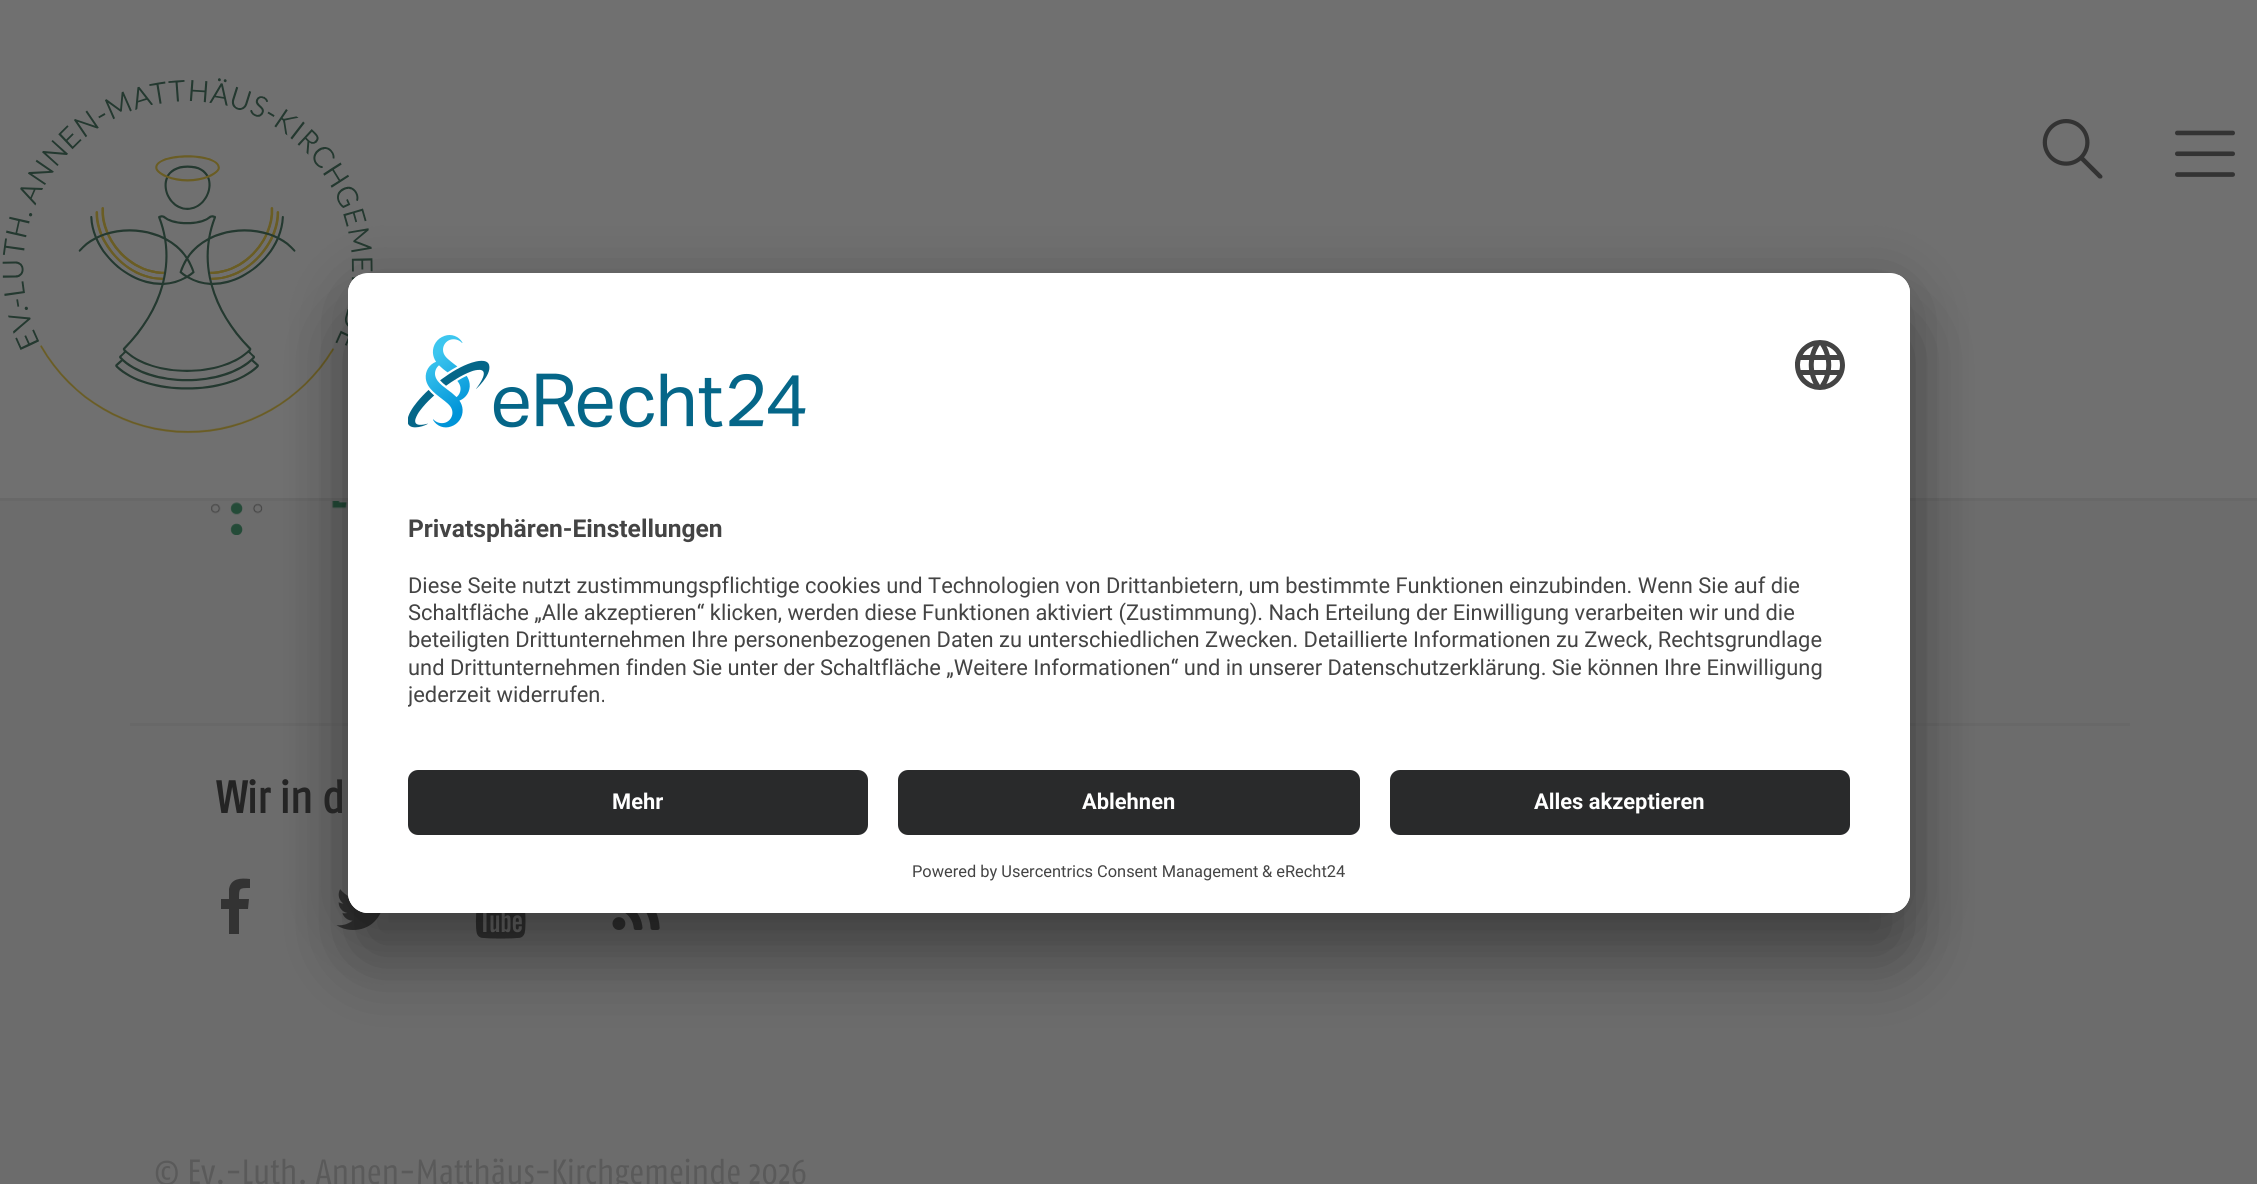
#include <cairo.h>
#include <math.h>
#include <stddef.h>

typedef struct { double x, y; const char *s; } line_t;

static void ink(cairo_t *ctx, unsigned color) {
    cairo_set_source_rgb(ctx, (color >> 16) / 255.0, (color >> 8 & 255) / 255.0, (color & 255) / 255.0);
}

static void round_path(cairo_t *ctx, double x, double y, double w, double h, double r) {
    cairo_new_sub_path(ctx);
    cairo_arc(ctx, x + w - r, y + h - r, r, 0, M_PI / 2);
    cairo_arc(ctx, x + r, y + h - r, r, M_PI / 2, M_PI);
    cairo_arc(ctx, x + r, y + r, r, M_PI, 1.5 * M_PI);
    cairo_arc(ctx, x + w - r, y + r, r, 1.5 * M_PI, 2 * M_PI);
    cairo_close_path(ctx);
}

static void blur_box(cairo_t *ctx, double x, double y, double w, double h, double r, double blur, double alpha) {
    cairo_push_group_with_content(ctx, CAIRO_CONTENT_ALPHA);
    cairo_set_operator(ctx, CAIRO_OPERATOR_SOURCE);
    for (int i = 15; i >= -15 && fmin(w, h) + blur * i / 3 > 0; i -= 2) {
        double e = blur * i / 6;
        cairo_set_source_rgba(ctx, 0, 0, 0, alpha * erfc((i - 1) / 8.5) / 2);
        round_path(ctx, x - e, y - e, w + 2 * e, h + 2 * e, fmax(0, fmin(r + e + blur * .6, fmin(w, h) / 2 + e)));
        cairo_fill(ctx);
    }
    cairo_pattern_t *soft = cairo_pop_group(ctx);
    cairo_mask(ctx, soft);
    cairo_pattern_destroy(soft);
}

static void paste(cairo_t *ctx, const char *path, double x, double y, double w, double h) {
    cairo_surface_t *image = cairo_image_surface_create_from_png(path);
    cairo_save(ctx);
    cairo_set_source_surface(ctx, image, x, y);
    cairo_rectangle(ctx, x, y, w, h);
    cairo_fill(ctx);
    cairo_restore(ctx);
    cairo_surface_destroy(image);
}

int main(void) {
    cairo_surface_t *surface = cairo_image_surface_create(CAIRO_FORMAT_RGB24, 2257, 1184);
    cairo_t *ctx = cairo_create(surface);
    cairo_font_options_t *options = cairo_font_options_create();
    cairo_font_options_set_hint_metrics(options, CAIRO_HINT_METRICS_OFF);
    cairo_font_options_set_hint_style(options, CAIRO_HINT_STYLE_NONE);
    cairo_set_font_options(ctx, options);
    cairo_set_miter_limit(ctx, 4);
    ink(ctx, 0x6C6C6C);
    cairo_paint(ctx);
    ink(ctx, 0x707070);
    cairo_rectangle(ctx, 0, 0, 2257, 498);
    cairo_fill(ctx);
    ink(ctx, 0x686868);
    cairo_rectangle(ctx, 0, 498, 2257, 3);
    cairo_fill(ctx);
    paste(ctx, "media/3.png", 2, 78, 371, 356);
    cairo_rectangle(ctx, 130, 723, 2000, 3);
    cairo_fill(ctx);
    paste(ctx, "media/6.png", 211, 501, 137, 34);
    ink(ctx, 0x333333);
    cairo_new_path(ctx);
    cairo_move_to(ctx, 250, 879);
    cairo_line_to(ctx, 250, 888);
    cairo_curve_to(ctx, 239, 888, 239, 888, 239, 899);
    cairo_line_to(ctx, 249, 899);
    cairo_line_to(ctx, 248, 909);
    cairo_line_to(ctx, 239, 909);
    cairo_line_to(ctx, 239, 934);
    cairo_line_to(ctx, 229, 934);
    cairo_line_to(ctx, 229, 909);
    cairo_line_to(ctx, 221, 909);
    cairo_line_to(ctx, 221, 899);
    cairo_line_to(ctx, 229, 899);
    cairo_line_to(ctx, 229, 889);
    cairo_curve_to(ctx, 231, 878, 241, 878, 250, 879);
    cairo_close_path(ctx);
    cairo_fill(ctx);
    paste(ctx, "media/7.png", 336, 889, 45, 41);
    paste(ctx, "media/8.png", 475, 913, 51, 26);
    paste(ctx, "media/9.png", 612, 913, 48, 17);
    ink(ctx, 0x000000);
    blur_box(ctx, 348, 323, 1562, 640, 20, 35, 0.3);
    blur_box(ctx, 348, 285, 1562, 640, 20, 32.5, 0.22);
    ink(ctx, 0xFFFFFF);
    round_path(ctx, 348, 273, 1562, 640, 20);
    cairo_fill(ctx);
    cairo_save(ctx);
    round_path(ctx, 348, 273, 1562, 640, 20);
    cairo_clip(ctx);
    cairo_new_path(ctx);
    cairo_move_to(ctx, 368, 273);
    cairo_line_to(ctx, 1890, 273);
    cairo_curve_to(ctx, 1901, 273, 1910, 282, 1910, 293);
    cairo_line_to(ctx, 1910, 750);
    cairo_line_to(ctx, 348, 750);
    cairo_line_to(ctx, 348, 293);
    cairo_curve_to(ctx, 348, 282, 357, 273, 368, 273);
    cairo_close_path(ctx);
    cairo_clip(ctx);
    cairo_rectangle(ctx, 348, 275, 1562, 475);
    cairo_fill(ctx);
    cairo_restore(ctx);
    paste(ctx, "media/1.png", 408, 335, 398, 93);
    paste(ctx, "media/2.png", 1795, 340, 50, 50);
    cairo_select_font_face(ctx, "Roboto", CAIRO_FONT_SLANT_NORMAL, CAIRO_FONT_WEIGHT_BOLD);
    cairo_set_font_size(ctx, 24.6);
    ink(ctx, 0x444444);
    cairo_move_to(ctx, 408, 537);
    cairo_show_text(ctx, "Privatsphären-Einstellungen");
    cairo_select_font_face(ctx, "Roboto", CAIRO_FONT_SLANT_NORMAL, CAIRO_FONT_WEIGHT_NORMAL);
    cairo_set_font_size(ctx, 21.88);
    {
        static const line_t items[] = {
            {408, 593, "Diese Seite nutzt zustimmungspflichtige cookies und Technologien von Drittanbietern, um bestimmte Funktionen einzubinden. Wenn Sie auf die"},
            {408, 620, "Schaltfläche „Alle akzeptieren“ klicken, werden diese Funktionen aktiviert (Zustimmung). Nach Erteilung der Einwilligung verarbeiten wir und die"},
            {408, 647, "beteiligten Drittunternehmen Ihre personenbezogenen Daten zu unterschiedlichen Zwecken. Detaillierte Informationen zu Zweck, Rechtsgrundlage"},
            {408, 675, "und Drittunternehmen finden Sie unter der Schaltfläche „Weitere Informationen“ und in unserer Datenschutzerklärung. Sie können Ihre Einwilligung"},
        };
        for (size_t i = 0; i < sizeof items / sizeof *items; i++) {
            cairo_move_to(ctx, items[i].x, items[i].y);
            cairo_show_text(ctx, items[i].s);
        }
    }
    cairo_save(ctx);
    cairo_rectangle(ctx, 408, 563, 1442, 157);
    cairo_clip(ctx);
    cairo_move_to(ctx, 408, 702);
    cairo_show_text(ctx, "jederzeit widerrufen.");
    cairo_restore(ctx);
    ink(ctx, 0xFFFFFF);
    cairo_new_path(ctx);
    cairo_move_to(ctx, 348, 750);
    cairo_line_to(ctx, 1910, 750);
    cairo_line_to(ctx, 1910, 893);
    cairo_curve_to(ctx, 1910, 904, 1901, 913, 1890, 913);
    cairo_line_to(ctx, 368, 913);
    cairo_curve_to(ctx, 357, 913, 348, 904, 348, 893);
    cairo_close_path(ctx);
    cairo_fill(ctx);
    ink(ctx, 0x292A2B);
    round_path(ctx, 408, 770, 460, 65, 10);
    cairo_fill(ctx);
    cairo_select_font_face(ctx, "Roboto", CAIRO_FONT_SLANT_NORMAL, CAIRO_FONT_WEIGHT_BOLD);
    ink(ctx, 0xFFFFFF);
    cairo_move_to(ctx, 612, 809);
    cairo_show_text(ctx, "Mehr");
    ink(ctx, 0x292A2B);
    round_path(ctx, 898, 770, 462, 65, 10);
    cairo_fill(ctx);
    ink(ctx, 0xFFFFFF);
    cairo_move_to(ctx, 1082, 809);
    cairo_show_text(ctx, "Ablehnen");
    ink(ctx, 0x292A2B);
    round_path(ctx, 1390, 770, 460, 65, 10);
    cairo_fill(ctx);
    ink(ctx, 0xFFFFFF);
    cairo_move_to(ctx, 1534, 809);
    cairo_show_text(ctx, "Alles akzeptieren");
    cairo_select_font_face(ctx, "Roboto", CAIRO_FONT_SLANT_NORMAL, CAIRO_FONT_WEIGHT_NORMAL);
    cairo_set_font_size(ctx, 16.4);
    ink(ctx, 0x444444);
    cairo_move_to(ctx, 912, 877);
    cairo_show_text(ctx, "Powered by Usercentrics Consent Management");
    cairo_move_to(ctx, 1262, 877);
    cairo_show_text(ctx, "& eRecht24");
    paste(ctx, "media/4.png", 2042, 119, 61, 60);
    paste(ctx, "media/5.png", 2175, 130, 60, 47);
    cairo_select_font_face(ctx, "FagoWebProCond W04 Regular", CAIRO_FONT_SLANT_NORMAL, CAIRO_FONT_WEIGHT_BOLD);
    cairo_set_font_size(ctx, 45);
    ink(ctx, 0x242424);
    cairo_move_to(ctx, 216, 813);
    cairo_show_text(ctx, "Wir in d");
    cairo_select_font_face(ctx, "FagoWebProCond W04 Regular", CAIRO_FONT_SLANT_NORMAL, CAIRO_FONT_WEIGHT_NORMAL);
    cairo_set_font_size(ctx, 35);
    ink(ctx, 0x5A5A5A);
    cairo_move_to(ctx, 154, 1184);
    cairo_show_text(ctx, "© Ev.-Luth. Annen-Matthäus-Kirchgemeinde 2026");
    cairo_surface_write_to_png(surface, "image.png");
    cairo_font_options_destroy(options);
    cairo_destroy(ctx);
    cairo_surface_destroy(surface);
    return 0;
}
